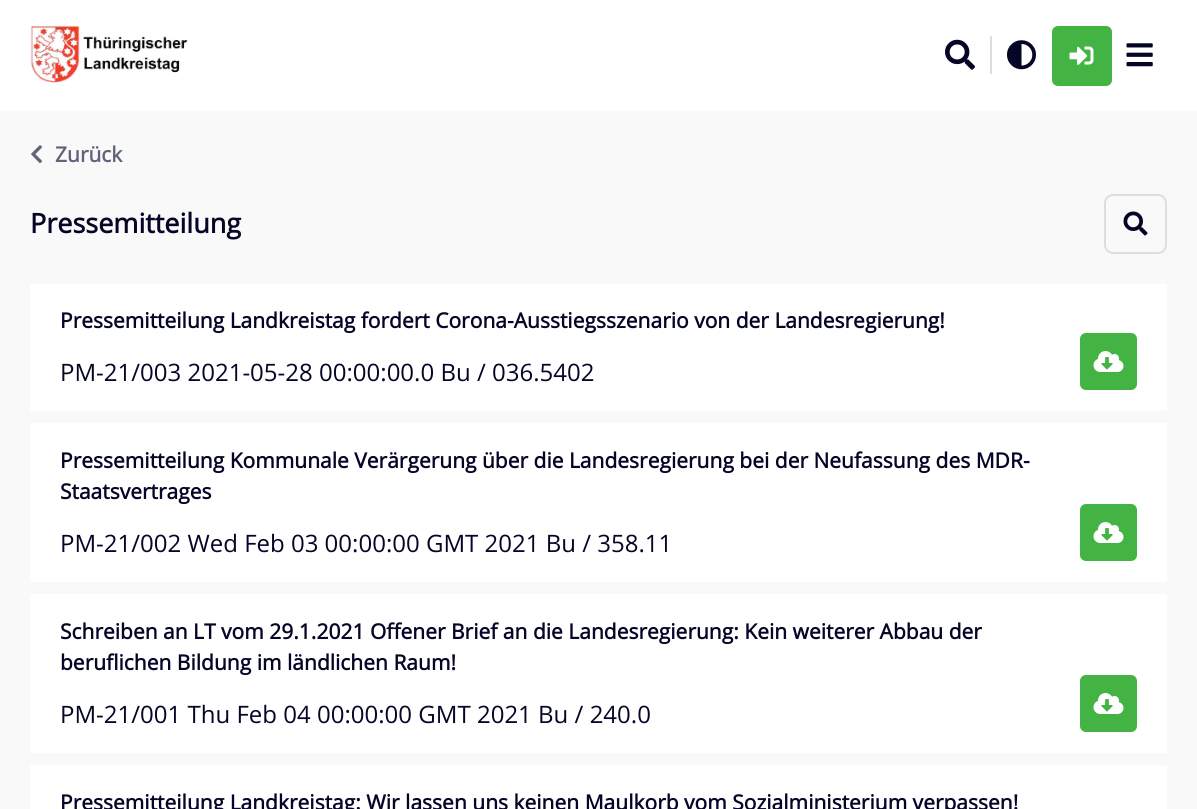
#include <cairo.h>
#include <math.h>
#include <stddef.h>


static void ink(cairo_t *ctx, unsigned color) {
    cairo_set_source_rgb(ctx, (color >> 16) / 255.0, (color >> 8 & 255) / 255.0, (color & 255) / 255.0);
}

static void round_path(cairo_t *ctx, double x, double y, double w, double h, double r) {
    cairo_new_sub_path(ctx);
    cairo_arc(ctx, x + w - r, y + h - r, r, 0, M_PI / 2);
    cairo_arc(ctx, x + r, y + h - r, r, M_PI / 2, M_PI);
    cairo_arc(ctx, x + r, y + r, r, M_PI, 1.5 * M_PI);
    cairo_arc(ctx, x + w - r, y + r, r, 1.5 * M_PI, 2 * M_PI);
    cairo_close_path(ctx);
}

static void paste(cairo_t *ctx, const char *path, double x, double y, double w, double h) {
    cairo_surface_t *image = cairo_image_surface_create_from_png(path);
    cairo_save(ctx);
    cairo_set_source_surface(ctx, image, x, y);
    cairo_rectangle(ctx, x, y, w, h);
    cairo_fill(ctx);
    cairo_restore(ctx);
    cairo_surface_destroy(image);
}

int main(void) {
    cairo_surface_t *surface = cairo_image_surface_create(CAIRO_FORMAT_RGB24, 1197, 809);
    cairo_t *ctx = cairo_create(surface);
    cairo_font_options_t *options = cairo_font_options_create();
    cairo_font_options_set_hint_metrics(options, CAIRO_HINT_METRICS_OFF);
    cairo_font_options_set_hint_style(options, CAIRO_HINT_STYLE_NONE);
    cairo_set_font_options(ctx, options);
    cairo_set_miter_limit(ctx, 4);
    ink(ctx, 0xFFFFFF);
    cairo_paint(ctx);
    paste(ctx, "media/1.png", 30, 25, 160, 58);
    ink(ctx, 0xDEDEDE);
    cairo_rectangle(ctx, 990, 36, 2, 38);
    cairo_fill(ctx);
    paste(ctx, "media/2.png", 945, 39, 30, 31);
    paste(ctx, "media/3.png", 1007, 40, 29, 30);
    ink(ctx, 0x43B343);
    round_path(ctx, 1053.5, 27.5, 57, 57, 4.5);
    cairo_fill_preserve(ctx);
    cairo_set_line_width(ctx, 3);
    cairo_stroke(ctx);
    paste(ctx, "media/4.png", 1069, 46, 25, 19);
    paste(ctx, "media/5.png", 1126, 43, 27, 24);
    ink(ctx, 0xF9F9F9);
    cairo_rectangle(ctx, 0, 111, 1197, 698);
    cairo_fill(ctx);
    paste(ctx, "media/6.png", 31, 145, 11, 18);
    cairo_select_font_face(ctx, "Open Sans", CAIRO_FONT_SLANT_NORMAL, CAIRO_FONT_WEIGHT_BOLD);
    cairo_set_font_size(ctx, 21);
    ink(ctx, 0x616379);
    cairo_move_to(ctx, 55, 162);
    cairo_show_text(ctx, "Zurück");
    cairo_set_font_size(ctx, 27);
    ink(ctx, 0x050627);
    cairo_move_to(ctx, 30, 233);
    cairo_show_text(ctx, "Pressemitteilung");
    round_path(ctx, 1105, 195, 61, 58, 8);
    ink(ctx, 0xDEDEDE);
    cairo_set_line_width(ctx, 2);
    cairo_stroke(ctx);
    paste(ctx, "media/7.png", 1123, 211, 25, 25);
    ink(ctx, 0xFFFFFF);
    cairo_rectangle(ctx, 30, 284, 1137, 127);
    cairo_fill(ctx);
    cairo_set_font_size(ctx, 21);
    ink(ctx, 0x050627);
    cairo_move_to(ctx, 60, 328);
    cairo_show_text(ctx, "Pressemitteilung Landkreistag fordert Corona-Ausstiegsszenario von der Landesregierung!");
    cairo_select_font_face(ctx, "Open Sans", CAIRO_FONT_SLANT_NORMAL, CAIRO_FONT_WEIGHT_NORMAL);
    cairo_set_font_size(ctx, 24);
    cairo_move_to(ctx, 60, 381);
    cairo_show_text(ctx, "PM-21/003 2021-05-28 00:00:00.0 Bu / 036.5402");
    ink(ctx, 0x43B343);
    round_path(ctx, 1081.5, 334.5, 54, 54, 4.5);
    cairo_fill_preserve(ctx);
    cairo_set_line_width(ctx, 3);
    cairo_stroke(ctx);
    paste(ctx, "media/8.png", 1093, 351, 31, 21);
    ink(ctx, 0xFFFFFF);
    cairo_rectangle(ctx, 30, 423, 1137, 159);
    cairo_fill(ctx);
    cairo_select_font_face(ctx, "Open Sans", CAIRO_FONT_SLANT_NORMAL, CAIRO_FONT_WEIGHT_BOLD);
    cairo_set_font_size(ctx, 21);
    ink(ctx, 0x050627);
    cairo_move_to(ctx, 60, 468);
    cairo_show_text(ctx, "Pressemitteilung Kommunale Verärgerung über die Landesregierung bei der Neufassung des MDR-");
    cairo_move_to(ctx, 60, 499);
    cairo_show_text(ctx, "Staatsvertrages");
    cairo_select_font_face(ctx, "Open Sans", CAIRO_FONT_SLANT_NORMAL, CAIRO_FONT_WEIGHT_NORMAL);
    cairo_set_font_size(ctx, 24);
    cairo_move_to(ctx, 60, 552);
    cairo_show_text(ctx, "PM-21/002 Wed Feb 03 00:00:00 GMT 2021 Bu / 358.11");
    ink(ctx, 0x43B343);
    round_path(ctx, 1081.5, 505.5, 54, 54, 4.5);
    cairo_fill_preserve(ctx);
    cairo_stroke(ctx);
    paste(ctx, "media/8.png", 1093, 522, 31, 21);
    ink(ctx, 0xFFFFFF);
    cairo_rectangle(ctx, 30, 594, 1137, 159);
    cairo_fill(ctx);
    cairo_select_font_face(ctx, "Open Sans", CAIRO_FONT_SLANT_NORMAL, CAIRO_FONT_WEIGHT_BOLD);
    cairo_set_font_size(ctx, 21);
    ink(ctx, 0x050627);
    cairo_move_to(ctx, 60, 639);
    cairo_show_text(ctx, "Schreiben an LT vom 29.1.2021 Offener Brief an die Landesregierung: Kein weiterer Abbau der");
    cairo_move_to(ctx, 60, 670);
    cairo_show_text(ctx, "beruflichen Bildung im ländlichen Raum!");
    cairo_select_font_face(ctx, "Open Sans", CAIRO_FONT_SLANT_NORMAL, CAIRO_FONT_WEIGHT_NORMAL);
    cairo_set_font_size(ctx, 24);
    cairo_move_to(ctx, 60, 723);
    cairo_show_text(ctx, "PM-21/001 Thu Feb 04 00:00:00 GMT 2021 Bu / 240.0");
    ink(ctx, 0x43B343);
    round_path(ctx, 1081.5, 676.5, 54, 54, 4.5);
    cairo_fill_preserve(ctx);
    cairo_stroke(ctx);
    paste(ctx, "media/8.png", 1093, 693, 31, 21);
    ink(ctx, 0xFFFFFF);
    cairo_rectangle(ctx, 30, 765, 1137, 44);
    cairo_fill(ctx);
    cairo_select_font_face(ctx, "Open Sans", CAIRO_FONT_SLANT_NORMAL, CAIRO_FONT_WEIGHT_BOLD);
    cairo_set_font_size(ctx, 21);
    ink(ctx, 0x050627);
    cairo_move_to(ctx, 60, 810);
    cairo_show_text(ctx, "Pressemitteilung Landkreistag: Wir lassen uns keinen Maulkorb vom Sozialministerium verpassen!");
    cairo_surface_write_to_png(surface, "image.png");
    cairo_font_options_destroy(options);
    cairo_destroy(ctx);
    cairo_surface_destroy(surface);
    return 0;
}
